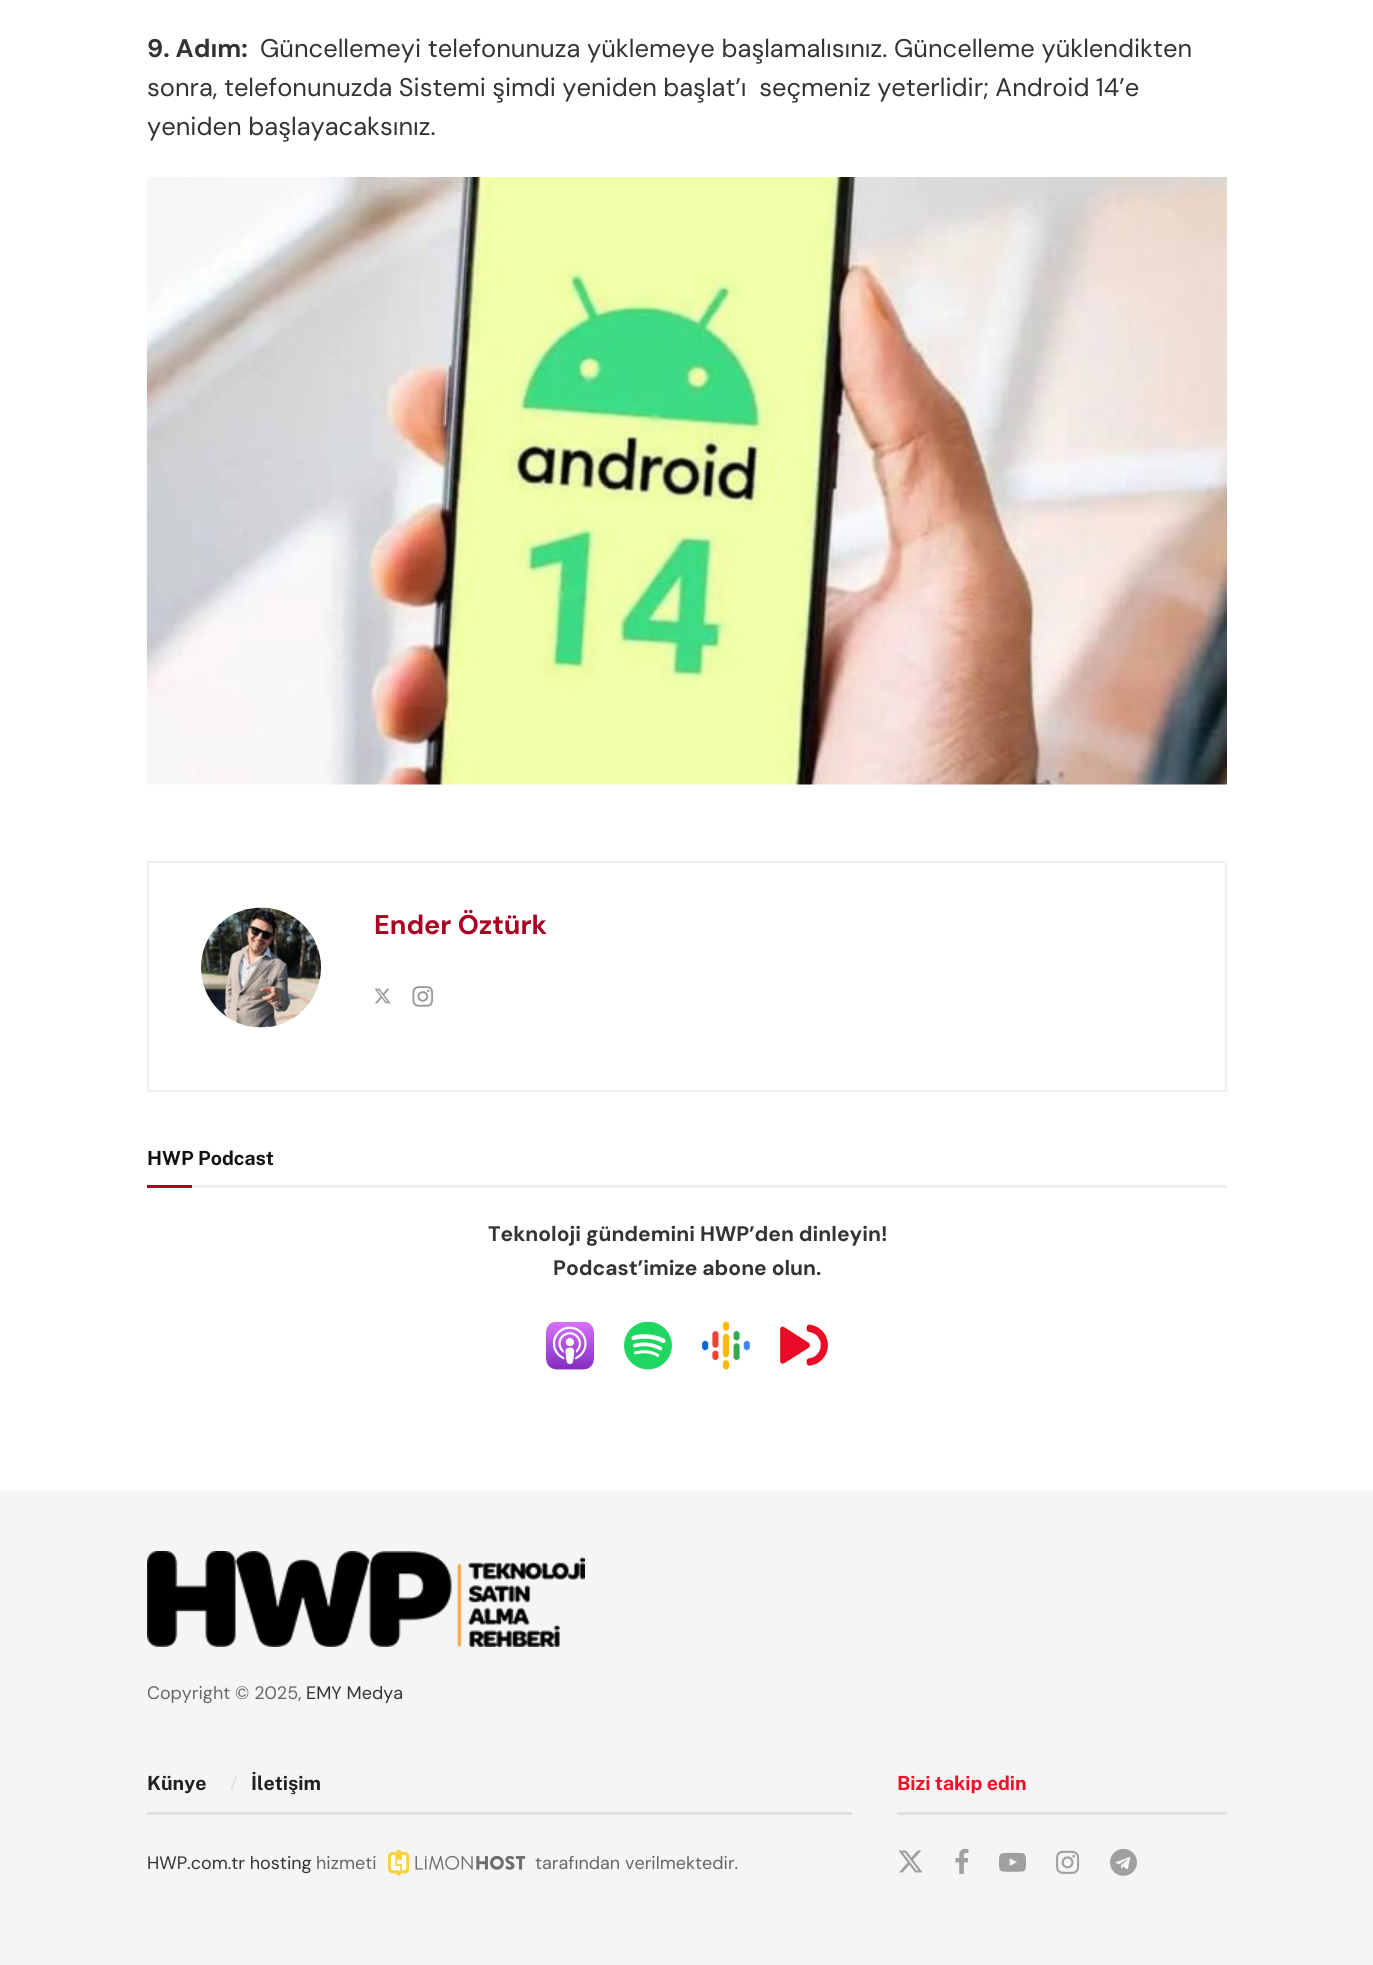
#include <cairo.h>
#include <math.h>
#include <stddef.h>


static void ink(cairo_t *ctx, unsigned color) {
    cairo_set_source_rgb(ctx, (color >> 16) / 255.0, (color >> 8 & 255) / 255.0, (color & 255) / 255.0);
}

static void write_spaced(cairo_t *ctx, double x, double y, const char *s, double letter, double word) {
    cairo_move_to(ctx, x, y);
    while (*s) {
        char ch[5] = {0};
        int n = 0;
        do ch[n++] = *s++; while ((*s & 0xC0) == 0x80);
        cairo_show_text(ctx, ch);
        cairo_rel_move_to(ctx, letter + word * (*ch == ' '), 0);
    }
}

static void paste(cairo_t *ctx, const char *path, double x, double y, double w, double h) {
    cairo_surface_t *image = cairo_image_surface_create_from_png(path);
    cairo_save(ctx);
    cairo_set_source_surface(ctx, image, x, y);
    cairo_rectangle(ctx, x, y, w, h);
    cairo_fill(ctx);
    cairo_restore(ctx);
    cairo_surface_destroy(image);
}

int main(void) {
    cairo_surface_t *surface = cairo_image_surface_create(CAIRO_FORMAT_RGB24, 1373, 1965);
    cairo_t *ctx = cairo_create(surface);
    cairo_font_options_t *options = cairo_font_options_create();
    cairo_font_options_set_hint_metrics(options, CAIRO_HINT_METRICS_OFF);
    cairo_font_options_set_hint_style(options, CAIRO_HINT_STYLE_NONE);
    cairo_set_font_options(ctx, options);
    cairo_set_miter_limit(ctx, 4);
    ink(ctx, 0xFFFFFF);
    cairo_paint(ctx);
    cairo_select_font_face(ctx, "DM Sans", CAIRO_FONT_SLANT_NORMAL, CAIRO_FONT_WEIGHT_BOLD);
    cairo_set_font_size(ctx, 25.5);
    ink(ctx, 0x333333);
    cairo_move_to(ctx, 147, 57);
    cairo_show_text(ctx, "9. Adım:");
    cairo_select_font_face(ctx, "DM Sans", CAIRO_FONT_SLANT_NORMAL, CAIRO_FONT_WEIGHT_NORMAL);
    cairo_move_to(ctx, 260, 57);
    cairo_show_text(ctx, "Güncellemeyi telefonunuza yüklemeye başlamalısınız. Güncelleme yüklendikten");
    write_spaced(ctx, 147, 96, "sonra, telefonunuzda Sistemi şimdi yeniden başlat’ı  seçmeniz yeterlidir; Android 14’e", 0, -0.4);
    cairo_move_to(ctx, 147, 135);
    cairo_show_text(ctx, "yeniden başlayacaksınız.");
    paste(ctx, "media/1.png", 147, 177, 1080, 608);
    cairo_rectangle(ctx, 148, 862, 1078, 229);
    ink(ctx, 0xEEEEEE);
    cairo_stroke(ctx);
    paste(ctx, "media/2.png", 201, 907, 120, 121);
    cairo_select_font_face(ctx, "DM Sans", CAIRO_FONT_SLANT_NORMAL, CAIRO_FONT_WEIGHT_BOLD);
    cairo_set_font_size(ctx, 27);
    ink(ctx, 0xAA0022);
    cairo_move_to(ctx, 374, 934);
    cairo_show_text(ctx, "Ender Öztürk");
    paste(ctx, "media/3.png", 374, 988, 17, 16);
    paste(ctx, "media/4.png", 412, 986, 22, 21);
    ink(ctx, 0xEEEEEE);
    cairo_rectangle(ctx, 192, 1185, 1035, 3);
    cairo_fill(ctx);
    cairo_select_font_face(ctx, "Public Sans Thin", CAIRO_FONT_SLANT_NORMAL, CAIRO_FONT_WEIGHT_NORMAL);
    cairo_set_font_size(ctx, 19.5);
    ink(ctx, 0x111111);
    cairo_move_to(ctx, 147, 1165);
    cairo_show_text(ctx, "HWP Podcast");
    ink(ctx, 0xAA0022);
    cairo_rectangle(ctx, 147, 1185, 45, 3);
    cairo_fill(ctx);
    cairo_select_font_face(ctx, "DM Sans", CAIRO_FONT_SLANT_NORMAL, CAIRO_FONT_WEIGHT_BOLD);
    cairo_set_font_size(ctx, 21);
    ink(ctx, 0x333333);
    cairo_move_to(ctx, 488, 1241);
    cairo_show_text(ctx, "Teknoloji gündemini HWP’den dinleyin!");
    cairo_move_to(ctx, 553, 1275);
    cairo_show_text(ctx, "Podcast’imize abone olun.");
    paste(ctx, "media/5.png", 546, 1322, 48, 48);
    paste(ctx, "media/6.png", 624, 1322, 48, 48);
    paste(ctx, "media/7.png", 702, 1321, 48, 49);
    paste(ctx, "media/8.png", 780, 1324, 48, 42);
    ink(ctx, 0xF5F5F5);
    cairo_rectangle(ctx, 0, 1491, 1373, 474);
    cairo_fill(ctx);
    paste(ctx, "media/9.png", 147, 1551, 438, 96);
    cairo_select_font_face(ctx, "DM Sans", CAIRO_FONT_SLANT_NORMAL, CAIRO_FONT_WEIGHT_NORMAL);
    cairo_set_font_size(ctx, 18);
    ink(ctx, 0x666666);
    cairo_move_to(ctx, 147, 1699);
    cairo_show_text(ctx, "Copyright © 2025,");
    ink(ctx, 0x333333);
    cairo_move_to(ctx, 306, 1699);
    cairo_show_text(ctx, "EMY Medya");
    ink(ctx, 0xE0E0E0);
    cairo_rectangle(ctx, 147, 1812, 705, 3);
    cairo_fill(ctx);
    cairo_select_font_face(ctx, "Public Sans Thin", CAIRO_FONT_SLANT_NORMAL, CAIRO_FONT_WEIGHT_NORMAL);
    cairo_set_font_size(ctx, 19.5);
    ink(ctx, 0x212121);
    cairo_move_to(ctx, 147, 1790);
    cairo_show_text(ctx, "Künye");
    ink(ctx, 0xE0E0E0);
    cairo_move_to(ctx, 230, 1790);
    cairo_show_text(ctx, "/");
    ink(ctx, 0x212121);
    cairo_move_to(ctx, 251, 1790);
    cairo_show_text(ctx, "İletişim");
    cairo_select_font_face(ctx, "DM Sans", CAIRO_FONT_SLANT_NORMAL, CAIRO_FONT_WEIGHT_NORMAL);
    cairo_set_font_size(ctx, 18);
    ink(ctx, 0x333333);
    cairo_move_to(ctx, 147, 1869);
    cairo_show_text(ctx, "HWP.com.tr hosting");
    ink(ctx, 0x666666);
    cairo_move_to(ctx, 316, 1869);
    cairo_show_text(ctx, "hizmeti");
    paste(ctx, "media/10.png", 388, 1849, 138, 27);
    cairo_move_to(ctx, 535, 1869);
    cairo_show_text(ctx, "tarafından verilmektedir.");
    ink(ctx, 0xE0E0E0);
    cairo_rectangle(ctx, 897, 1812, 330, 3);
    cairo_fill(ctx);
    cairo_select_font_face(ctx, "Public Sans Thin", CAIRO_FONT_SLANT_NORMAL, CAIRO_FONT_WEIGHT_NORMAL);
    cairo_set_font_size(ctx, 19.5);
    ink(ctx, 0xF70D28);
    cairo_move_to(ctx, 897, 1790);
    cairo_show_text(ctx, "Bizi takip edin");
    paste(ctx, "media/11.png", 898, 1850, 25, 23);
    paste(ctx, "media/12.png", 955, 1848, 14, 26);
    paste(ctx, "media/13.png", 999, 1852, 27, 20);
    paste(ctx, "media/14.png", 1056, 1850, 24, 24);
    paste(ctx, "media/15.png", 1110, 1848, 27, 28);
    cairo_surface_write_to_png(surface, "image.png");
    cairo_font_options_destroy(options);
    cairo_destroy(ctx);
    cairo_surface_destroy(surface);
    return 0;
}
